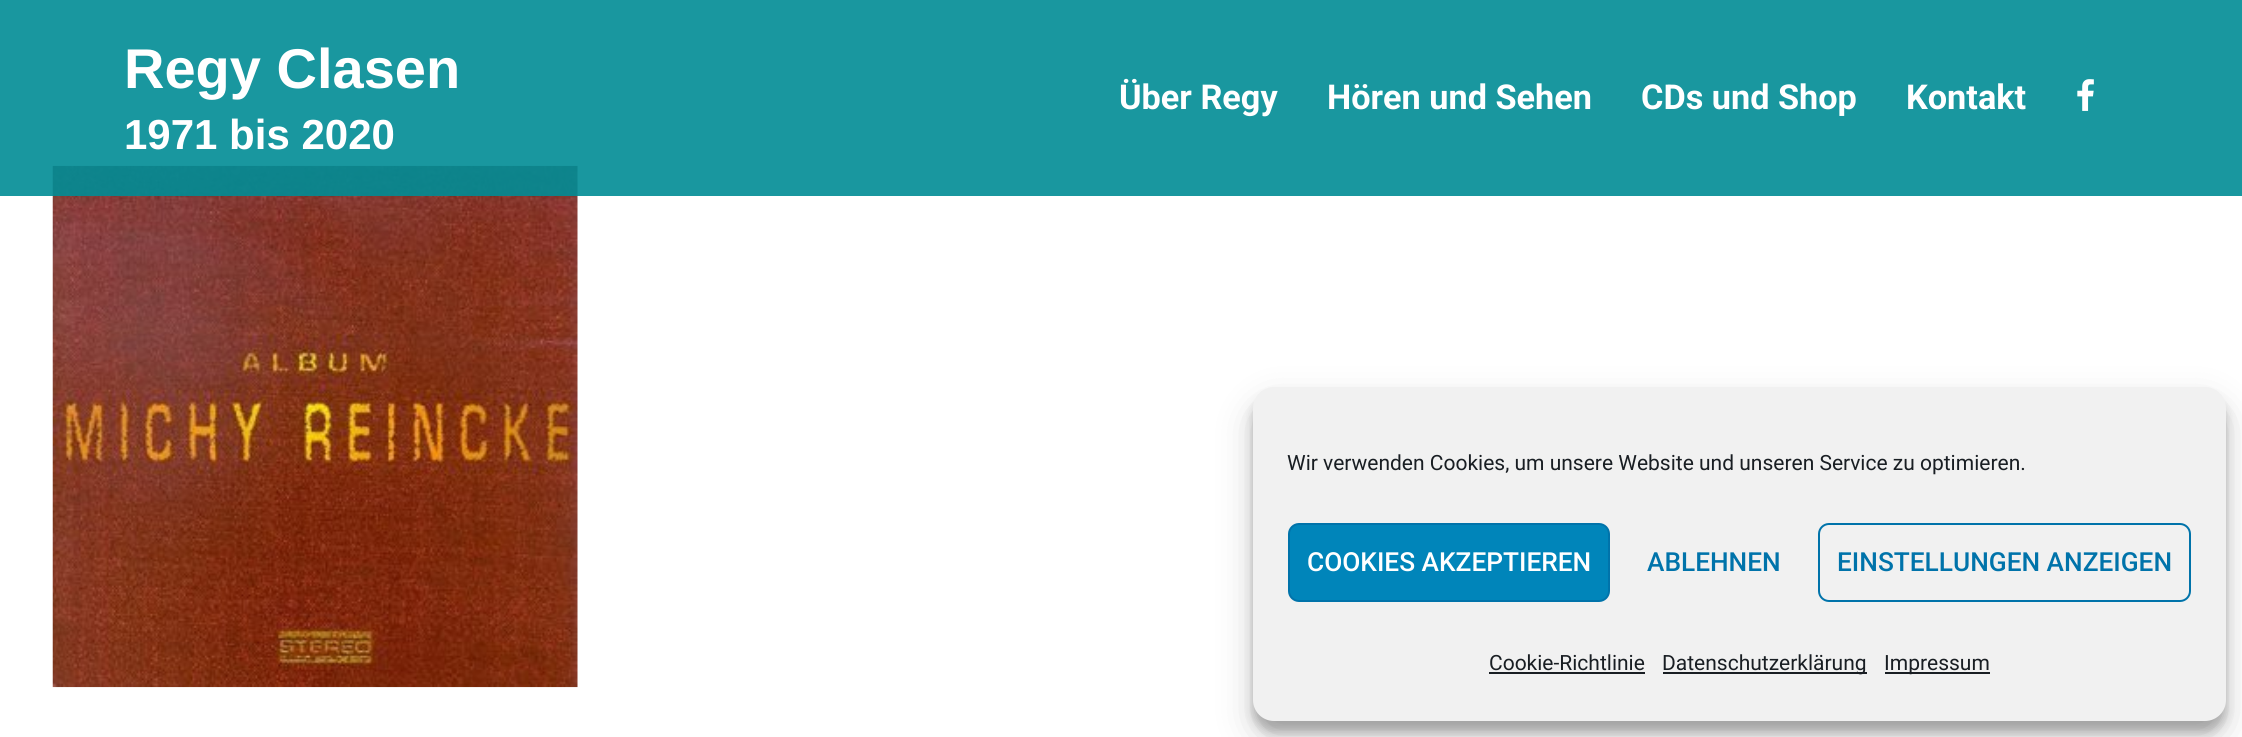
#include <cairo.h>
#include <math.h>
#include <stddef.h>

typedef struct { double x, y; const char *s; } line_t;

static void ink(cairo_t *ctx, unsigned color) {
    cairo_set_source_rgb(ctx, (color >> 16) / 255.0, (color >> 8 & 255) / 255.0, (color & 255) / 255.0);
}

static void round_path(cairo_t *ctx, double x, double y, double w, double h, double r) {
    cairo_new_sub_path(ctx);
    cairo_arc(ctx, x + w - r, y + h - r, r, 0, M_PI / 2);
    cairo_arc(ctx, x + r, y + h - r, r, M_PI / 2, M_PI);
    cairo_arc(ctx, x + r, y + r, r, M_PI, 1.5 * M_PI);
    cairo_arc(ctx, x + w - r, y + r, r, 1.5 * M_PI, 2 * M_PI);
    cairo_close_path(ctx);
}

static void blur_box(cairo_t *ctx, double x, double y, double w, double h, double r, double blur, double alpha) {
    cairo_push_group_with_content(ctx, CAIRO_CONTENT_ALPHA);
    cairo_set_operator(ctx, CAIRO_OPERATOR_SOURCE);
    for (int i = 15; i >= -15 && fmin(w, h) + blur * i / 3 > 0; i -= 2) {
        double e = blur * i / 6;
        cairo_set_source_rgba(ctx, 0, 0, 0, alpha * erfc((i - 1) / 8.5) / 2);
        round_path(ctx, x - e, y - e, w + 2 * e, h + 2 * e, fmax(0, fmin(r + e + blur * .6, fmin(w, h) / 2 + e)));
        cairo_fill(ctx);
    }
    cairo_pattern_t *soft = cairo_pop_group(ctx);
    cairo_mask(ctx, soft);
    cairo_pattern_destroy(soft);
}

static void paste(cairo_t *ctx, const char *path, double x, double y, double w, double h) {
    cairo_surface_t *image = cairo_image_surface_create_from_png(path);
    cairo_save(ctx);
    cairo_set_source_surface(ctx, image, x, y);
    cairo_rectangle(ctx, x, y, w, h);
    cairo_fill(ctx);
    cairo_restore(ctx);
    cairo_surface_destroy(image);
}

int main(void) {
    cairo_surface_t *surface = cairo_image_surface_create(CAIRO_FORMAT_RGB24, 2242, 737);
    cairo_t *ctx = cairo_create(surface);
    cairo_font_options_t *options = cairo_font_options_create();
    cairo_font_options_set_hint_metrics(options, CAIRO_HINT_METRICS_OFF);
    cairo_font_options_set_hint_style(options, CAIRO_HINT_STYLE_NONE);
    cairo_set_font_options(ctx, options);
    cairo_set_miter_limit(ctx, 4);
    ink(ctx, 0xFFFFFF);
    cairo_paint(ctx);
    paste(ctx, "media/2.png", 52, 165, 526, 523);
    cairo_set_source_rgba(ctx, 0, 0.549, 0.584, 0.9);
    cairo_rectangle(ctx, 0, 0, 2242, 196);
    cairo_fill(ctx);
    cairo_select_font_face(ctx, "Liberation Sans", CAIRO_FONT_SLANT_NORMAL, CAIRO_FONT_WEIGHT_BOLD);
    cairo_set_font_size(ctx, 56);
    ink(ctx, 0xFFFFFF);
    cairo_move_to(ctx, 124, 88);
    cairo_show_text(ctx, "Regy Clasen");
    cairo_set_font_size(ctx, 42);
    cairo_move_to(ctx, 124, 149);
    cairo_show_text(ctx, "1971 bis 2020");
    cairo_select_font_face(ctx, "Roboto", CAIRO_FONT_SLANT_NORMAL, CAIRO_FONT_WEIGHT_BOLD);
    cairo_set_font_size(ctx, 34.25);
    {
        static const line_t items[] = {
            {1119, 109, "Über Regy"},
            {1327, 109, "Hören und Sehen"},
            {1641, 109, "CDs und Shop"},
            {1906, 109, "Kontakt"},
        };
        for (size_t i = 0; i < sizeof items / sizeof *items; i++) {
            cairo_move_to(ctx, items[i].x, items[i].y);
            cairo_show_text(ctx, items[i].s);
        }
    }
    paste(ctx, "media/1.png", 2077, 79, 17, 32);
    ink(ctx, 0x000000);
    blur_box(ctx, 1253, 397, 973, 335, 21, 5, 0.23);
    blur_box(ctx, 1253, 404, 973, 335, 21, 17.5, 0.19);
    ink(ctx, 0xF1F1F1);
    round_path(ctx, 1253, 387, 973, 334, 21);
    cairo_fill(ctx);
    cairo_select_font_face(ctx, "Roboto", CAIRO_FONT_SLANT_NORMAL, CAIRO_FONT_WEIGHT_NORMAL);
    cairo_set_font_size(ctx, 21);
    ink(ctx, 0x191E23);
    cairo_move_to(ctx, 1287, 470);
    cairo_show_text(ctx, "Wir verwenden Cookies, um unsere Website und unseren Service zu optimieren.");
    ink(ctx, 0x0085BA);
    round_path(ctx, 1289, 524, 320, 77, 10);
    cairo_fill_preserve(ctx);
    ink(ctx, 0x0073AA);
    cairo_stroke(ctx);
    cairo_select_font_face(ctx, "Roboto Medium", CAIRO_FONT_SLANT_NORMAL, CAIRO_FONT_WEIGHT_NORMAL);
    cairo_set_font_size(ctx, 26.25);
    ink(ctx, 0xFFFFFF);
    cairo_move_to(ctx, 1307, 571);
    cairo_show_text(ctx, "COOKIES AKZEPTIEREN");
    ink(ctx, 0x0073AA);
    cairo_move_to(ctx, 1647, 571);
    cairo_show_text(ctx, "ABLEHNEN");
    round_path(ctx, 1819, 524, 371, 77, 10);
    cairo_stroke(ctx);
    cairo_move_to(ctx, 1837, 571);
    cairo_show_text(ctx, "EINSTELLUNGEN ANZEIGEN");
    cairo_select_font_face(ctx, "Roboto", CAIRO_FONT_SLANT_NORMAL, CAIRO_FONT_WEIGHT_NORMAL);
    cairo_set_font_size(ctx, 21);
    ink(ctx, 0x191E23);
    cairo_move_to(ctx, 1489, 670);
    cairo_show_text(ctx, "Cookie-Richtlinie");
    cairo_rectangle(ctx, 1489, 672, 156, 2);
    cairo_fill(ctx);
    cairo_rectangle(ctx, 1663, 672, 204, 2);
    cairo_fill(ctx);
    cairo_move_to(ctx, 1662, 670);
    cairo_show_text(ctx, "Datenschutzerklärung");
    cairo_rectangle(ctx, 1885, 672, 105, 2);
    cairo_fill(ctx);
    cairo_move_to(ctx, 1884, 670);
    cairo_show_text(ctx, "Impressum");
    cairo_surface_write_to_png(surface, "image.png");
    cairo_font_options_destroy(options);
    cairo_destroy(ctx);
    cairo_surface_destroy(surface);
    return 0;
}
